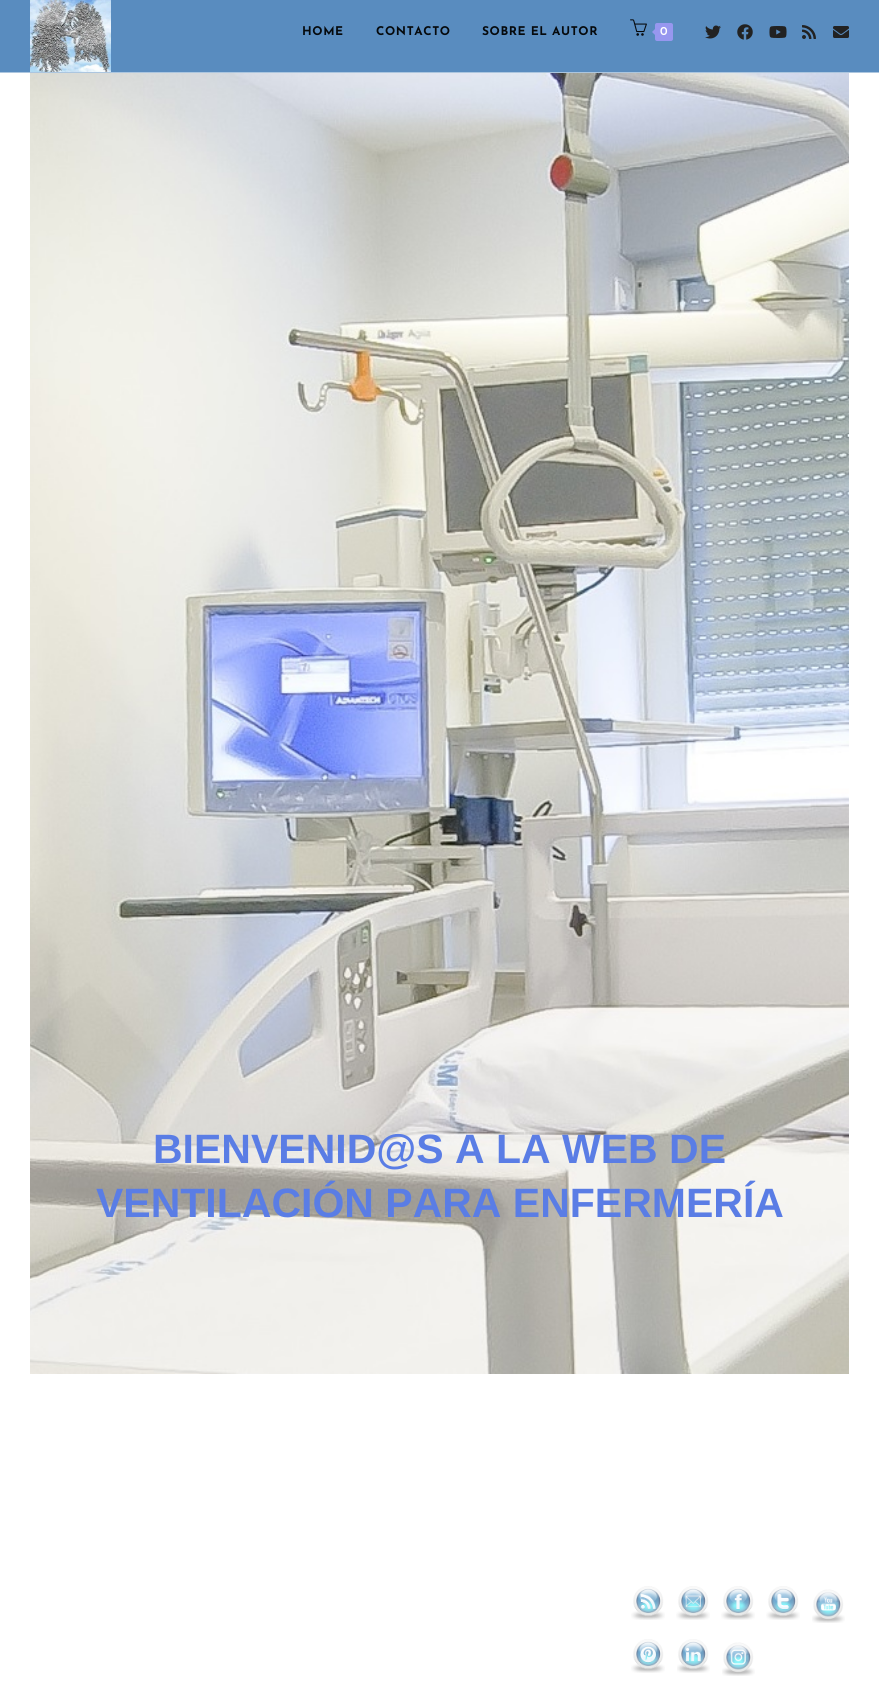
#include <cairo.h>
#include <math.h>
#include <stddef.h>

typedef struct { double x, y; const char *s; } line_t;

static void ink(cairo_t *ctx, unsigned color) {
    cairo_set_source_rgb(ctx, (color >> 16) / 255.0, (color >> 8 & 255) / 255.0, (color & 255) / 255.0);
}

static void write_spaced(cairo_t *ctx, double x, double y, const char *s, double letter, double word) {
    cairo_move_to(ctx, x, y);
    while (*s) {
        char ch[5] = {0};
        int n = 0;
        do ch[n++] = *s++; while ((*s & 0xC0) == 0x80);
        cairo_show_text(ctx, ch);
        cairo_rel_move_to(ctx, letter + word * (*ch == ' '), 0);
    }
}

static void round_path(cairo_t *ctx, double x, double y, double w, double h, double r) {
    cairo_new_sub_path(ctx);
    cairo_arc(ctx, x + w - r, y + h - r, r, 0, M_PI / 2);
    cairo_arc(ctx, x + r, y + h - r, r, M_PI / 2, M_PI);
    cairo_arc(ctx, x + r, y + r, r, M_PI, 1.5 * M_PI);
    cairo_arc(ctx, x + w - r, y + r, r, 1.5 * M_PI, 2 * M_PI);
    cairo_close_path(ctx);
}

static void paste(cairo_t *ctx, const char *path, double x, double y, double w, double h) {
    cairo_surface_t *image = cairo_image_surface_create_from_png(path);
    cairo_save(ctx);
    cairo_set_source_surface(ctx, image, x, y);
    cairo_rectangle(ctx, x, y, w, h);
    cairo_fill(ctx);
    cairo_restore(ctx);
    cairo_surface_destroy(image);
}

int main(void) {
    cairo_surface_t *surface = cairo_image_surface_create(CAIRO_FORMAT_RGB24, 879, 1688);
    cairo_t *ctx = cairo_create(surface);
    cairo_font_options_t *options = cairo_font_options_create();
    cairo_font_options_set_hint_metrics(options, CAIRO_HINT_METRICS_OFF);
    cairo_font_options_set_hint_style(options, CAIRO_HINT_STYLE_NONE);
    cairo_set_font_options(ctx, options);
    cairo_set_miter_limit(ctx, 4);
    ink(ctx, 0xFFFFFF);
    cairo_paint(ctx);
    ink(ctx, 0x598CBF);
    cairo_rectangle(ctx, 0, 0, 879, 72);
    cairo_fill(ctx);
    ink(ctx, 0xACC6DF);
    cairo_rectangle(ctx, 0, 72, 879, 1);
    cairo_fill(ctx);
    paste(ctx, "media/1.png", 30, 0, 81, 72);
    cairo_select_font_face(ctx, "Josefin Sans", CAIRO_FONT_SLANT_NORMAL, CAIRO_FONT_WEIGHT_BOLD);
    cairo_set_font_size(ctx, 12);
    ink(ctx, 0x060A0D);
    {
        static const line_t items[] = {
            {302, 35, "HOME"},
            {376, 35, "CONTACTO"},
            {482, 35, "SOBRE EL AUTOR"},
        };
        for (size_t i = 0; i < sizeof items / sizeof *items; i++) {
            write_spaced(ctx, items[i].x, items[i].y, items[i].s, 0.6, 0);
        }
    }
    paste(ctx, "media/2.png", 630, 19, 17, 17);
    ink(ctx, 0x9797EF);
    round_path(ctx, 655, 23, 18, 18, 2);
    cairo_fill(ctx);
    cairo_new_path(ctx);
    cairo_move_to(ctx, 657, 27);
    cairo_line_to(ctx, 657, 37);
    cairo_line_to(ctx, 652, 32);
    cairo_close_path(ctx);
    cairo_fill(ctx);
    cairo_select_font_face(ctx, "Josefin Sans SemiBold", CAIRO_FONT_SLANT_NORMAL, CAIRO_FONT_WEIGHT_NORMAL);
    ink(ctx, 0xFFFFFF);
    cairo_move_to(ctx, 660, 35);
    cairo_show_text(ctx, "0");
    paste(ctx, "media/3.png", 705, 25, 16, 14);
    paste(ctx, "media/4.png", 737, 24, 16, 16);
    paste(ctx, "media/5.png", 769, 26, 18, 12);
    paste(ctx, "media/6.png", 802, 25, 14, 14);
    paste(ctx, "media/7.png", 833, 26, 16, 12);
    paste(ctx, "media/8.png", 30, 73, 819, 1301);
    cairo_select_font_face(ctx, "Liberation Sans", CAIRO_FONT_SLANT_NORMAL, CAIRO_FONT_WEIGHT_BOLD);
    cairo_set_font_size(ctx, 41);
    ink(ctx, 0x5A7DE5);
    cairo_move_to(ctx, 153, 1163);
    cairo_show_text(ctx, "BIENVENID@S A LA WEB DE");
    cairo_move_to(ctx, 96, 1217);
    cairo_show_text(ctx, "VENTILACIÓN PARA ENFERMERÍA");
    paste(ctx, "media/9.png", 631, 1586, 34, 34);
    paste(ctx, "media/10.png", 676, 1586, 34, 34);
    paste(ctx, "media/11.png", 721, 1586, 34, 34);
    paste(ctx, "media/12.png", 766, 1586, 34, 34);
    paste(ctx, "media/13.png", 812, 1589, 33, 34);
    paste(ctx, "media/14.png", 631, 1639, 34, 34);
    paste(ctx, "media/15.png", 677, 1639, 33, 34);
    paste(ctx, "media/16.png", 722, 1642, 33, 34);
    cairo_surface_write_to_png(surface, "image.png");
    cairo_font_options_destroy(options);
    cairo_destroy(ctx);
    cairo_surface_destroy(surface);
    return 0;
}
